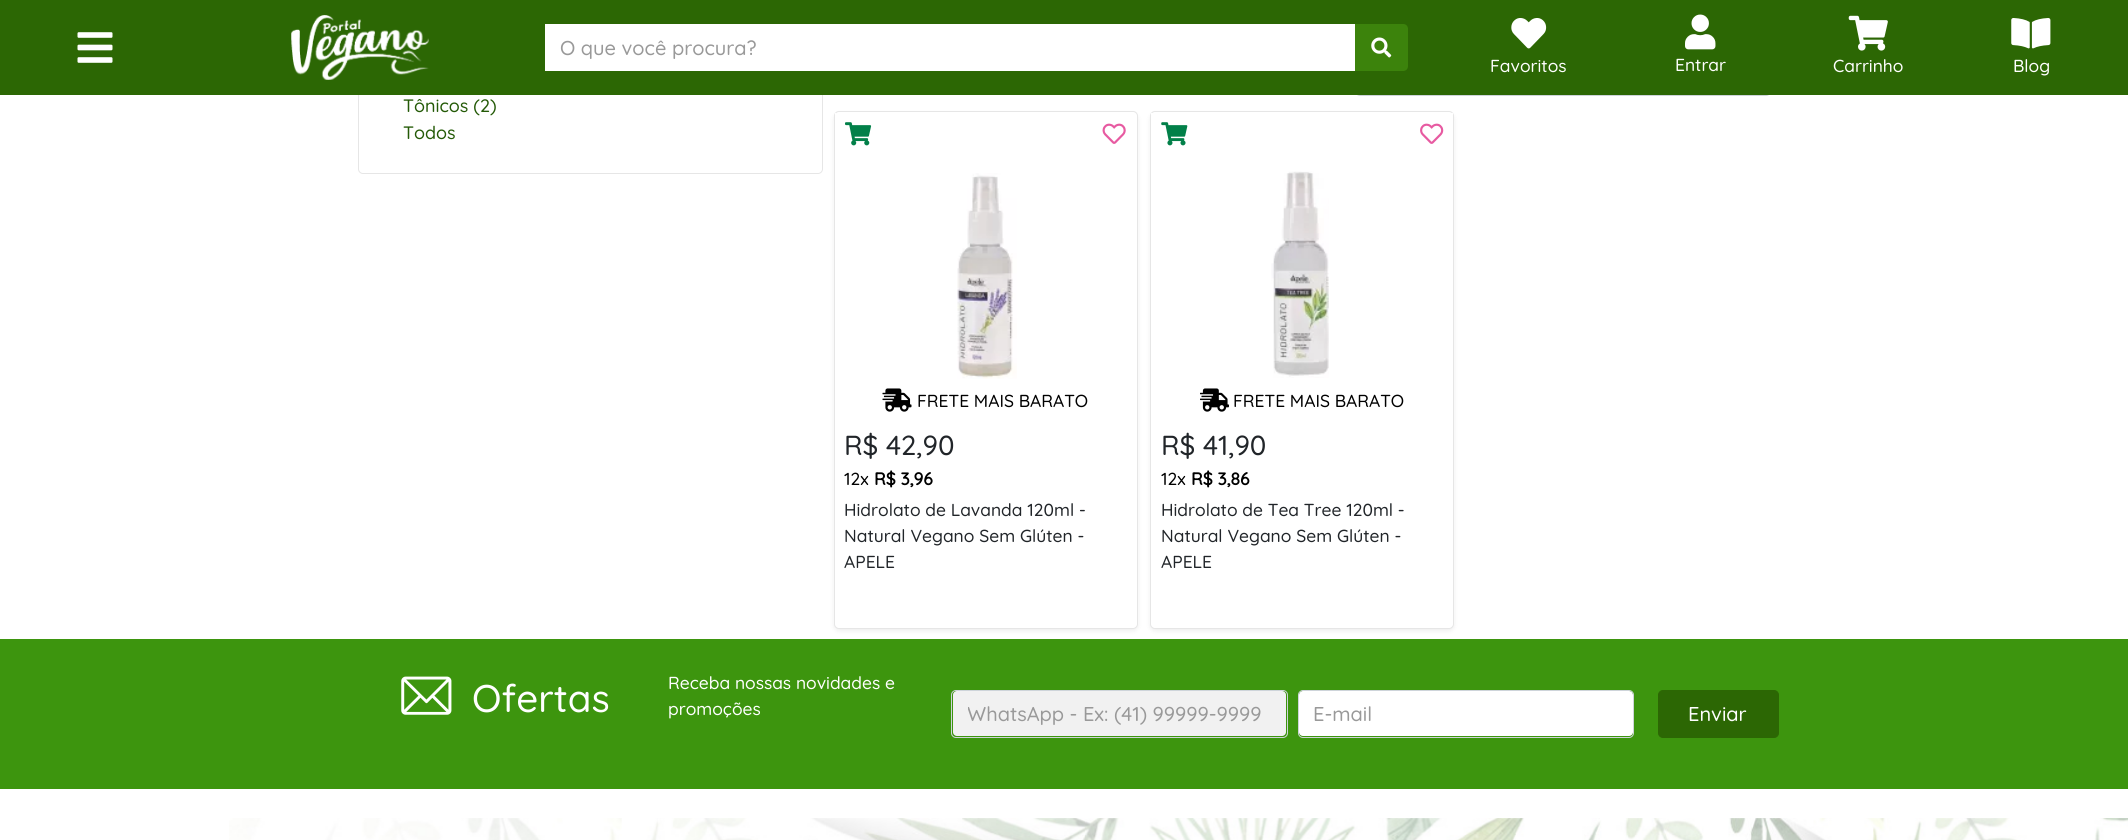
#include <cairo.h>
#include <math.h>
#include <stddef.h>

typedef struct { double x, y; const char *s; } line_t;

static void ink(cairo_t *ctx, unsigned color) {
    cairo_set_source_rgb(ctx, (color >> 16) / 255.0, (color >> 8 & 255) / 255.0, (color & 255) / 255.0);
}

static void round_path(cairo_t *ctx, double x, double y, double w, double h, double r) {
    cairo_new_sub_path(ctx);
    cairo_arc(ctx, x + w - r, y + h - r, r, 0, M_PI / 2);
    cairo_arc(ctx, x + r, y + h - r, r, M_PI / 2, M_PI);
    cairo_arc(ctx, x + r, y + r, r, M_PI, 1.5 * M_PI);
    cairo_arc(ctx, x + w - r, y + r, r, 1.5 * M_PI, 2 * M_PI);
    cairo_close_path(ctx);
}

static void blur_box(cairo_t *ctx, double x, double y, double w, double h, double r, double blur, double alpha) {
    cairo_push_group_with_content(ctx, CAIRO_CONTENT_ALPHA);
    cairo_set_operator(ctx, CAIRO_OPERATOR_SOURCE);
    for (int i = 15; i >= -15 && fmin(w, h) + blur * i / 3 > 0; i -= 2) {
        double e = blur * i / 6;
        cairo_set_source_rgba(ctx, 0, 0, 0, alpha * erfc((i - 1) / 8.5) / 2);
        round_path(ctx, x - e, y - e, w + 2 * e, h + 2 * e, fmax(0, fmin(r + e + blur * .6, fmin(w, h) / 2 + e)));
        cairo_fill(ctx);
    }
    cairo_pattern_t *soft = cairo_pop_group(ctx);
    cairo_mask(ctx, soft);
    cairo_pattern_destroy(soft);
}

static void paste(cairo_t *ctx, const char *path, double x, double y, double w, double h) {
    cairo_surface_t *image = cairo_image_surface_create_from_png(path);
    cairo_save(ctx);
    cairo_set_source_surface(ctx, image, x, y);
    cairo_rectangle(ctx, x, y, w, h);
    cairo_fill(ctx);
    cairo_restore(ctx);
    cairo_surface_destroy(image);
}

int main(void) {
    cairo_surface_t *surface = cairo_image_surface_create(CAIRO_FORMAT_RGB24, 2128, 840);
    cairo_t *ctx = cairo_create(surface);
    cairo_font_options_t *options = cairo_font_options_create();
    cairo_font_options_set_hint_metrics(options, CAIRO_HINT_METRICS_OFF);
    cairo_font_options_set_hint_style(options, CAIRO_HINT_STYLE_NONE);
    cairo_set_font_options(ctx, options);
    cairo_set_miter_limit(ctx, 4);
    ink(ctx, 0xFFFFFF);
    cairo_paint(ctx);
    round_path(ctx, 358.5, 49.5, 464, 124, 4.5);
    ink(ctx, 0xE6E6E6);
    cairo_set_line_width(ctx, 1);
    cairo_stroke(ctx);
    round_path(ctx, 1355.5, 49.5, 415, 46, 4.5);
    ink(ctx, 0xCED4DA);
    cairo_stroke(ctx);
    ink(ctx, 0x2C6704);
    cairo_rectangle(ctx, 0, 0, 2128, 95);
    cairo_fill(ctx);
    paste(ctx, "media/1.png", 77, 32, 36, 31);
    paste(ctx, "media/2.png", 291, 15, 138, 65);
    ink(ctx, 0xFFFFFF);
    cairo_rectangle(ctx, 545, 24, 810, 47);
    cairo_fill(ctx);
    cairo_select_font_face(ctx, "Quicksand Light", CAIRO_FONT_SLANT_NORMAL, CAIRO_FONT_WEIGHT_NORMAL);
    cairo_set_font_size(ctx, 20);
    ink(ctx, 0x999999);
    cairo_move_to(ctx, 560, 55);
    cairo_show_text(ctx, "O que você procura?");
    ink(ctx, 0x3C830C);
    cairo_new_path(ctx);
    cairo_move_to(ctx, 1355, 24);
    cairo_line_to(ctx, 1403, 24);
    cairo_curve_to(ctx, 1406, 24, 1408, 26, 1408, 29);
    cairo_line_to(ctx, 1408, 66);
    cairo_curve_to(ctx, 1408, 69, 1406, 71, 1403, 71);
    cairo_line_to(ctx, 1355, 71);
    cairo_close_path(ctx);
    cairo_fill(ctx);
    paste(ctx, "media/3.png", 1371, 37, 21, 21);
    paste(ctx, "media/4.png", 1511, 18, 36, 31);
    cairo_set_font_size(ctx, 17.4);
    ink(ctx, 0xFFFFFF);
    cairo_move_to(ctx, 1490, 72);
    cairo_show_text(ctx, "Favoritos");
    paste(ctx, "media/5.png", 1685, 14, 31, 36);
    cairo_move_to(ctx, 1675, 71);
    cairo_show_text(ctx, "Entrar");
    paste(ctx, "media/6.png", 1848, 15, 40, 36);
    cairo_move_to(ctx, 1833, 72);
    cairo_show_text(ctx, "Carrinho");
    paste(ctx, "media/7.png", 2011, 18, 40, 31);
    cairo_move_to(ctx, 2013, 72);
    cairo_show_text(ctx, "Blog");
    cairo_set_font_size(ctx, 18);
    ink(ctx, 0x245A07);
    cairo_move_to(ctx, 403, 112);
    cairo_show_text(ctx, "Tônicos (2)");
    cairo_move_to(ctx, 403, 139);
    cairo_show_text(ctx, "Todos");
    ink(ctx, 0x3D950E);
    cairo_rectangle(ctx, 0, 639, 2128, 150);
    cairo_fill(ctx);
    ink(ctx, 0x000000);
    blur_box(ctx, 834, 114, 304, 517, 5, 2.5, 0.07);
    ink(ctx, 0xFFFFFF);
    round_path(ctx, 834.5, 111.5, 303, 517, 4.5);
    cairo_fill_preserve(ctx);
    ink(ctx, 0xE6E6E6);
    cairo_stroke(ctx);
    ink(ctx, 0xFFFFFF);
    cairo_rectangle(ctx, 835, 113, 1, 2);
    cairo_fill(ctx);
    paste(ctx, "media/8.png", 845, 122, 27, 24);
    paste(ctx, "media/9.png", 1102, 123, 24, 21);
    paste(ctx, "media/10.png", 957, 173, 60, 206);
    paste(ctx, "media/11.png", 882, 388, 30, 24);
    cairo_set_font_size(ctx, 17.4);
    ink(ctx, 0x000000);
    cairo_move_to(ctx, 917, 407);
    cairo_show_text(ctx, "FRETE MAIS BARATO");
    cairo_set_font_size(ctx, 27.5);
    ink(ctx, 0x212529);
    cairo_move_to(ctx, 844, 455);
    cairo_show_text(ctx, "R$ 42,90");
    cairo_set_font_size(ctx, 17.4);
    ink(ctx, 0x000000);
    cairo_move_to(ctx, 844, 485);
    cairo_show_text(ctx, "12x");
    cairo_select_font_face(ctx, "Quicksand", CAIRO_FONT_SLANT_NORMAL, CAIRO_FONT_WEIGHT_BOLD);
    cairo_move_to(ctx, 874, 485);
    cairo_show_text(ctx, "R$ 3,96");
    cairo_select_font_face(ctx, "Quicksand Light", CAIRO_FONT_SLANT_NORMAL, CAIRO_FONT_WEIGHT_NORMAL);
    ink(ctx, 0x212529);
    {
        static const line_t items[] = {
            {844, 516, "Hidrolato de Lavanda 120ml -"},
            {844, 542, "Natural Vegano Sem Glúten -"},
            {844, 568, "APELE"},
        };
        for (size_t i = 0; i < sizeof items / sizeof *items; i++) {
            cairo_move_to(ctx, items[i].x, items[i].y);
            cairo_show_text(ctx, items[i].s);
        }
    }
    ink(ctx, 0x000000);
    blur_box(ctx, 1150, 114, 304, 517, 5, 2.5, 0.07);
    ink(ctx, 0xFFFFFF);
    round_path(ctx, 1150.5, 111.5, 303, 517, 4.5);
    cairo_fill_preserve(ctx);
    ink(ctx, 0xE6E6E6);
    cairo_stroke(ctx);
    ink(ctx, 0xFFFFFF);
    cairo_rectangle(ctx, 1151, 113, 302, 2);
    cairo_fill(ctx);
    paste(ctx, "media/12.png", 1161, 122, 27, 24);
    paste(ctx, "media/13.png", 1420, 123, 24, 21);
    paste(ctx, "media/14.png", 1271, 171, 58, 207);
    paste(ctx, "media/15.png", 1200, 388, 29, 24);
    ink(ctx, 0x000000);
    cairo_move_to(ctx, 1233, 407);
    cairo_show_text(ctx, "FRETE MAIS BARATO");
    cairo_set_font_size(ctx, 27.5);
    ink(ctx, 0x212529);
    cairo_move_to(ctx, 1161, 455);
    cairo_show_text(ctx, "R$ 41,90");
    cairo_set_font_size(ctx, 17.4);
    ink(ctx, 0x000000);
    cairo_move_to(ctx, 1161, 485);
    cairo_show_text(ctx, "12x");
    cairo_select_font_face(ctx, "Quicksand", CAIRO_FONT_SLANT_NORMAL, CAIRO_FONT_WEIGHT_BOLD);
    cairo_move_to(ctx, 1191, 485);
    cairo_show_text(ctx, "R$ 3,86");
    cairo_select_font_face(ctx, "Quicksand Light", CAIRO_FONT_SLANT_NORMAL, CAIRO_FONT_WEIGHT_NORMAL);
    ink(ctx, 0x212529);
    {
        static const line_t items[] = {
            {1161, 516, "Hidrolato de Tea Tree 120ml -"},
            {1161, 542, "Natural Vegano Sem Glúten -"},
            {1161, 568, "APELE"},
        };
        for (size_t i = 0; i < sizeof items / sizeof *items; i++) {
            cairo_move_to(ctx, items[i].x, items[i].y);
            cairo_show_text(ctx, items[i].s);
        }
    }
    paste(ctx, "media/16.png", 401, 676, 51, 39);
    cairo_set_font_size(ctx, 38.5);
    ink(ctx, 0xFFFFFF);
    cairo_move_to(ctx, 472, 712);
    cairo_show_text(ctx, "Ofertas");
    cairo_set_font_size(ctx, 17.4);
    cairo_move_to(ctx, 668, 689);
    cairo_show_text(ctx, "Receba nossas novidades e");
    cairo_move_to(ctx, 668, 715);
    cairo_show_text(ctx, "promoções");
    ink(ctx, 0xF1F1F1);
    round_path(ctx, 953, 691, 333, 45, 4);
    cairo_fill(ctx);
    round_path(ctx, 951.5, 690.5, 336, 47, 4.5);
    ink(ctx, 0xCED4DA);
    cairo_stroke(ctx);
    cairo_save(ctx);
    cairo_rectangle(ctx, 968, 701, 303, 25);
    cairo_clip(ctx);
    cairo_set_font_size(ctx, 20);
    ink(ctx, 0x999999);
    cairo_move_to(ctx, 967, 721);
    cairo_show_text(ctx, "WhatsApp - Ex: (41) 99999-9999");
    cairo_restore(ctx);
    ink(ctx, 0xFFFFFF);
    round_path(ctx, 1299, 691, 334, 45, 4);
    cairo_fill(ctx);
    round_path(ctx, 1298.5, 690.5, 335, 47, 4.5);
    ink(ctx, 0xCED4DA);
    cairo_stroke(ctx);
    cairo_set_font_size(ctx, 20);
    ink(ctx, 0x999999);
    cairo_move_to(ctx, 1313, 721);
    cairo_show_text(ctx, "E-mail");
    ink(ctx, 0x2C6704);
    round_path(ctx, 1658.5, 690.5, 120, 47, 4.5);
    cairo_fill_preserve(ctx);
    cairo_stroke(ctx);
    ink(ctx, 0xFFFFFF);
    cairo_move_to(ctx, 1688, 721);
    cairo_show_text(ctx, "Enviar");
    paste(ctx, "media/17.png", 229, 818, 1899, 22);
    cairo_surface_write_to_png(surface, "image.png");
    cairo_font_options_destroy(options);
    cairo_destroy(ctx);
    cairo_surface_destroy(surface);
    return 0;
}
